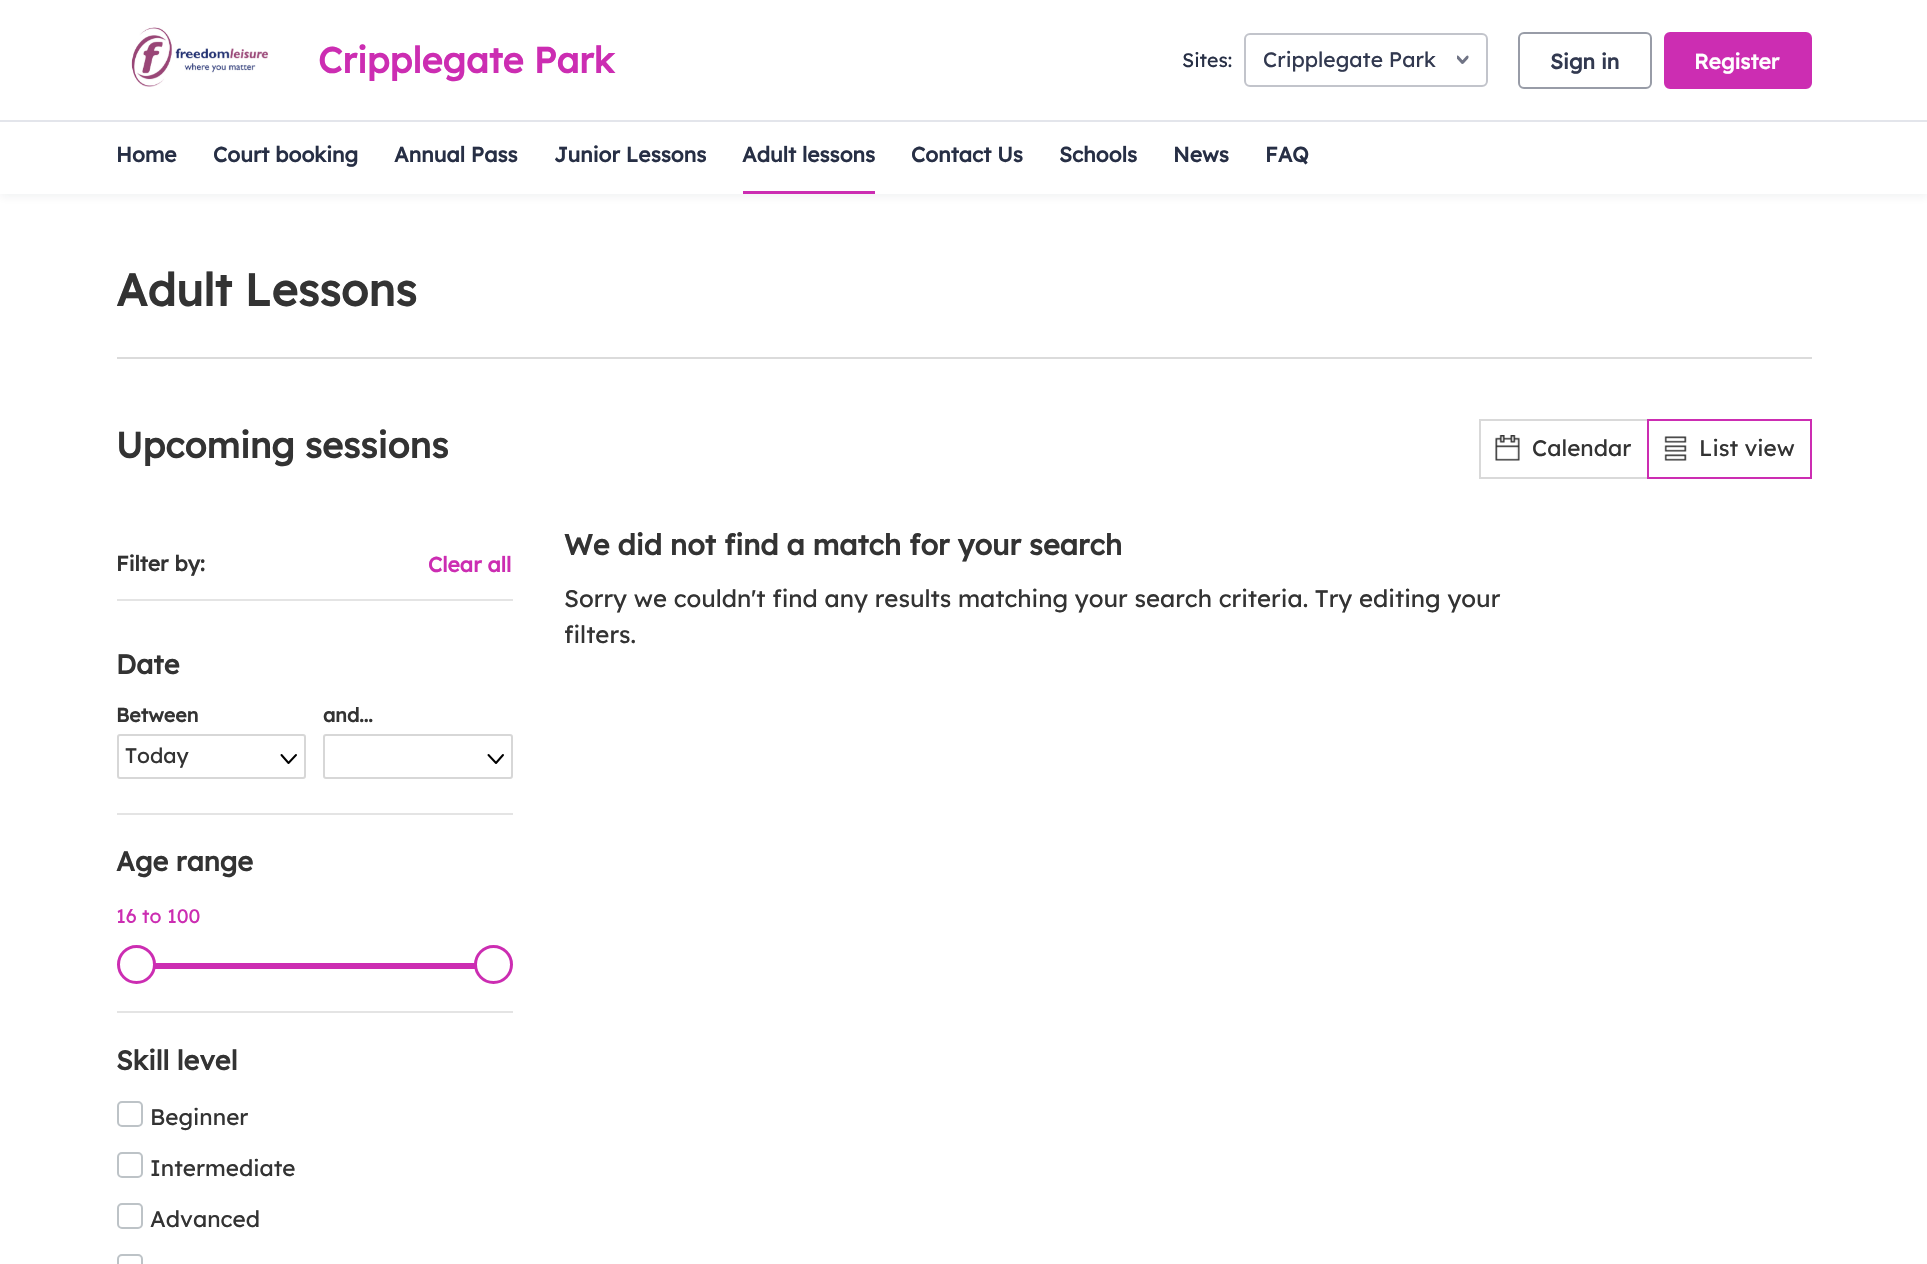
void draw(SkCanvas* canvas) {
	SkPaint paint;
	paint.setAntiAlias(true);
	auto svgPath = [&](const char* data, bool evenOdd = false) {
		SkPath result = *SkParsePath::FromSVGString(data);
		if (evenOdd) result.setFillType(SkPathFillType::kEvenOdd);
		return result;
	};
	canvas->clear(0xffffffff);
	paint.setColor(0x0f141d37);
	paint.setMaskFilter(SkMaskFilter::MakeBlur(kNormal_SkBlurStyle, 4.5));
	canvas->drawRect(SkRect::MakeXYWH(0, 3, 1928, 194), paint);
	paint.setMaskFilter(nullptr);
	paint.setColor(0xffffffff);
	canvas->drawRect(SkRect::MakeXYWH(0, 0, 1927, 194), paint);
	canvas->drawImageRect(SkImages::DeferredFromEncodedData(SkData::MakeFromFileName("img1.png")), SkRect::MakeXYWH(131, 27, 138, 60), SkSamplingOptions());
	SkFont f1(fontMgr->matchFamilyStyle("Lexend", SkFontStyle::Bold()), 36);
	f1.setSubpixel(true);
	paint.setColor(0xffcc2db2);
	canvas->drawString("Cripplegate Park", 318, 73, f1, paint);
	SkFont f2(fontMgr->matchFamilyStyle("Lexend", SkFontStyle::Normal()), 19.5);
	f2.setSubpixel(true);
	paint.setColor(0xff272f45);
	canvas->drawString("Sites:", 1182, 67, f2, paint);
	paint.setStroke(true);
	paint.setStrokeWidth(2);
	paint.setColor(0xffc2c4cb);
	canvas->drawRoundRect(SkRect::MakeXYWH(1245, 34, 242, 52), 5, 5, paint);
	SkFont f3(fontMgr->matchFamilyStyle("Lexend", SkFontStyle::Normal()), 21);
	f3.setSubpixel(true);
	paint.setStroke(false);
	paint.setColor(0xff323950);
	canvas->drawString("Cripplegate Park", 1263, 67, f3, paint);
	canvas->save();
	canvas->clipRect(SkRect::MakeXYWH(1457, 54, 12, 12));
	canvas->clipPath(svgPath("M1456.5 54H1468.5V66H1456.5Z"), true);
	paint.setStroke(true);
	paint.setStrokeWidth(3);
	paint.setStrokeCap(SkPaint::kRound_Cap);
	paint.setStrokeJoin(SkPaint::kRound_Join);
	paint.setColor(0xff707485);
	canvas->drawPath(svgPath("M1457.5 57L1462.5 62.5L1467.5 57"), paint);
	canvas->restore();
	paint.setStrokeWidth(2);
	paint.setStrokeCap(SkPaint::kButt_Cap);
	paint.setStrokeJoin(SkPaint::kMiter_Join);
	paint.setColor(0xff989ca7);
	canvas->drawRoundRect(SkRect::MakeXYWH(1519, 33, 132, 55), 5, 5, paint);
	SkFont f4(fontMgr->matchFamilyStyle("Lexend", SkFontStyle::Bold()), 21);
	f4.setSubpixel(true);
	paint.setStroke(false);
	paint.setColor(0xff323950);
	canvas->drawString("Sign in", 1550, 69, f4, paint);
	paint.setColor(0xffcc2db2);
	canvas->drawRoundRect(SkRect::MakeXYWH(1665, 33, 146, 55), 5, 5, paint);
	paint.setStroke(true);
	canvas->drawRoundRect(SkRect::MakeXYWH(1665, 33, 146, 55), 5, 5, paint);
	paint.setStroke(false);
	paint.setColor(0xffffffff);
	canvas->drawString("Register", 1694, 69, f4, paint);
	paint.setColor(0xffe3e5eb);
	canvas->drawRect(SkRect::MakeXYWH(0, 120, 1927, 2), paint);
	paint.setColor(0xff272f45);
	canvas->drawString("Home", 116, 162, f4, paint);
	canvas->drawString("Court booking", 213, 162, f4, paint);
	canvas->drawString("Annual Pass", 394, 162, f4, paint);
	canvas->drawString("Junior Lessons", 554, 162, f4, paint);
	paint.setColor(0xffcc2db2);
	canvas->drawRect(SkRect::MakeXYWH(743, 191, 132, 3), paint);
	paint.setColor(0xff272f45);
	canvas->drawString("Adult lessons", 742, 162, f4, paint);
	canvas->drawString("Contact Us", 911, 162, f4, paint);
	canvas->drawString("Schools", 1059, 162, f4, paint);
	canvas->drawString("News", 1173, 162, f4, paint);
	canvas->drawString("FAQ", 1265, 162, f4, paint);
	SkFont f5(fontMgr->matchFamilyStyle("Lexend", SkFontStyle::Bold()), 45);
	f5.setSubpixel(true);
	paint.setColor(0xff333333);
	canvas->drawString("Adult Lessons", 116, 306, f5, paint);
	paint.setColor(0xffdbdbdb);
	canvas->drawRect(SkRect::MakeXYWH(117, 357, 1695, 2), paint);
	paint.setColor(0xff333333);
	canvas->drawString("Upcoming sessions", 116, 458, f1, paint);
	paint.setStroke(true);
	paint.setColor(0xffd9d9d9);
	canvas->drawRect(SkRect::MakeXYWH(1480, 420, 168, 58), paint);
	canvas->drawImageRect(SkImages::DeferredFromEncodedData(SkData::MakeFromFileName("img2.png")), SkRect::MakeXYWH(1495, 435, 25, 26), SkSamplingOptions());
	SkFont f6(fontMgr->matchFamilyStyle("Lexend", SkFontStyle::Normal()), 22.5);
	f6.setSubpixel(true);
	paint.setStroke(false);
	paint.setColor(0xff333333);
	canvas->drawString("Calendar", 1532, 456, f6, paint);
	paint.setStroke(true);
	paint.setColor(0xffcc2db2);
	canvas->drawRect(SkRect::MakeXYWH(1648, 420, 163, 58), paint);
	canvas->drawImageRect(SkImages::DeferredFromEncodedData(SkData::MakeFromFileName("img3.png")), SkRect::MakeXYWH(1664, 436, 23, 25), SkSamplingOptions());
	paint.setStroke(false);
	paint.setColor(0xff333333);
	canvas->drawString("List view", 1699, 456, f6, paint);
	paint.setColor(0xffe4e4e4);
	canvas->drawRect(SkRect::MakeXYWH(117, 599, 396, 2), paint);
	paint.setColor(0xff333333);
	canvas->drawString("Filter by:", 116, 571, f4, paint);
	paint.setColor(0xffcc2db2);
	canvas->drawString("Clear all", 428, 572, f4, paint);
	paint.setColor(0xffe4e4e4);
	canvas->drawRect(SkRect::MakeXYWH(117, 813, 396, 2), paint);
	SkFont f7(fontMgr->matchFamilyStyle("Lexend", SkFontStyle::Bold()), 27);
	f7.setSubpixel(true);
	paint.setColor(0xff333333);
	canvas->drawString("Date", 116, 674, f7, paint);
	SkFont f8(fontMgr->matchFamilyStyle("Lexend", SkFontStyle::Bold()), 19.5);
	f8.setSubpixel(true);
	canvas->drawString("Between", 116, 722, f8, paint);
	paint.setStroke(true);
	paint.setStrokeCap(SkPaint::kRound_Cap);
	paint.setStrokeJoin(SkPaint::kRound_Join);
	paint.setColor(0xff000000);
	canvas->drawPath(svgPath("M296 755L288.5 763L281.5 755"), paint);
	paint.setStrokeCap(SkPaint::kButt_Cap);
	paint.setStrokeJoin(SkPaint::kMiter_Join);
	paint.setColor(0xffd7d7d7);
	canvas->drawRoundRect(SkRect::MakeXYWH(118, 735, 187, 43), 2, 2, paint);
	paint.setStroke(false);
	paint.setColor(0xff333333);
	canvas->drawString("Today", 125, 763, f3, paint);
	canvas->drawString("and...", 323, 722, f8, paint);
	paint.setStroke(true);
	paint.setStrokeCap(SkPaint::kRound_Cap);
	paint.setStrokeJoin(SkPaint::kRound_Join);
	paint.setColor(0xff000000);
	canvas->drawPath(svgPath("M503 755L496 763L488.5 755"), paint);
	paint.setStrokeCap(SkPaint::kButt_Cap);
	paint.setStrokeJoin(SkPaint::kMiter_Join);
	paint.setColor(0xffd7d7d7);
	canvas->drawRoundRect(SkRect::MakeXYWH(324, 735, 188, 43), 2, 2, paint);
	paint.setStroke(false);
	paint.setColor(0xffe4e4e4);
	canvas->drawRect(SkRect::MakeXYWH(117, 1011, 396, 2), paint);
	paint.setColor(0xff333333);
	canvas->drawString("Age range", 116, 871, f7, paint);
	paint.setColor(0xffcc2db2);
	canvas->drawString("16 to 100", 116, 923, f2, paint);
	canvas->drawRect(SkRect::MakeXYWH(155, 963, 320, 6), paint);
	paint.setColor(0xffffffff);
	canvas->drawCircle(136.5, 964.5, 18, paint);
	paint.setStroke(true);
	paint.setStrokeWidth(3);
	paint.setColor(0xffcc2db2);
	canvas->drawCircle(136.5, 964.5, 18, paint);
	paint.setStroke(false);
	paint.setColor(0xffffffff);
	canvas->drawCircle(493.5, 964.5, 18, paint);
	paint.setStroke(true);
	paint.setColor(0xffcc2db2);
	canvas->drawCircle(493.5, 964.5, 18, paint);
	paint.setStroke(false);
	paint.setColor(0xff333333);
	canvas->drawString("Skill level", 116, 1070, f7, paint);
	paint.setStroke(true);
	paint.setStrokeWidth(2);
	paint.setColor(0xffbdc3c7);
	canvas->drawRoundRect(SkRect::MakeXYWH(118, 1102, 24, 24), 4, 4, paint);
	paint.setStroke(false);
	paint.setColor(0xff333333);
	canvas->drawString("Beginner", 150, 1125, f6, paint);
	paint.setStroke(true);
	paint.setColor(0xffbdc3c7);
	canvas->drawRoundRect(SkRect::MakeXYWH(118, 1153, 24, 24), 4, 4, paint);
	paint.setStroke(false);
	paint.setColor(0xff333333);
	canvas->drawString("Intermediate", 150, 1176, f6, paint);
	paint.setStroke(true);
	paint.setColor(0xffbdc3c7);
	canvas->drawRoundRect(SkRect::MakeXYWH(118, 1204, 24, 24), 4, 4, paint);
	paint.setStroke(false);
	paint.setColor(0xff333333);
	canvas->drawString("Advanced", 150, 1227, f6, paint);
	paint.setStroke(true);
	paint.setColor(0xffbdc3c7);
	canvas->drawRoundRect(SkRect::MakeXYWH(118, 1255, 24, 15), 4, 4, paint);
	SkFont f9(fontMgr->matchFamilyStyle("Lexend", SkFontStyle::Bold()), 28.75);
	f9.setSubpixel(true);
	paint.setStroke(false);
	paint.setColor(0xff333333);
	canvas->drawString("We did not find a match for your search", 564, 555, f9, paint);
	SkFont f10(fontMgr->matchFamilyStyle("Lexend", SkFontStyle::Normal()), 24);
	f10.setSubpixel(true);
	canvas->drawString("Sorry we couldn't find any results matching your search criteria. Try editing your", 564, 607, f10, paint);
	canvas->drawString("filters.", 564, 643, f10, paint);
}
